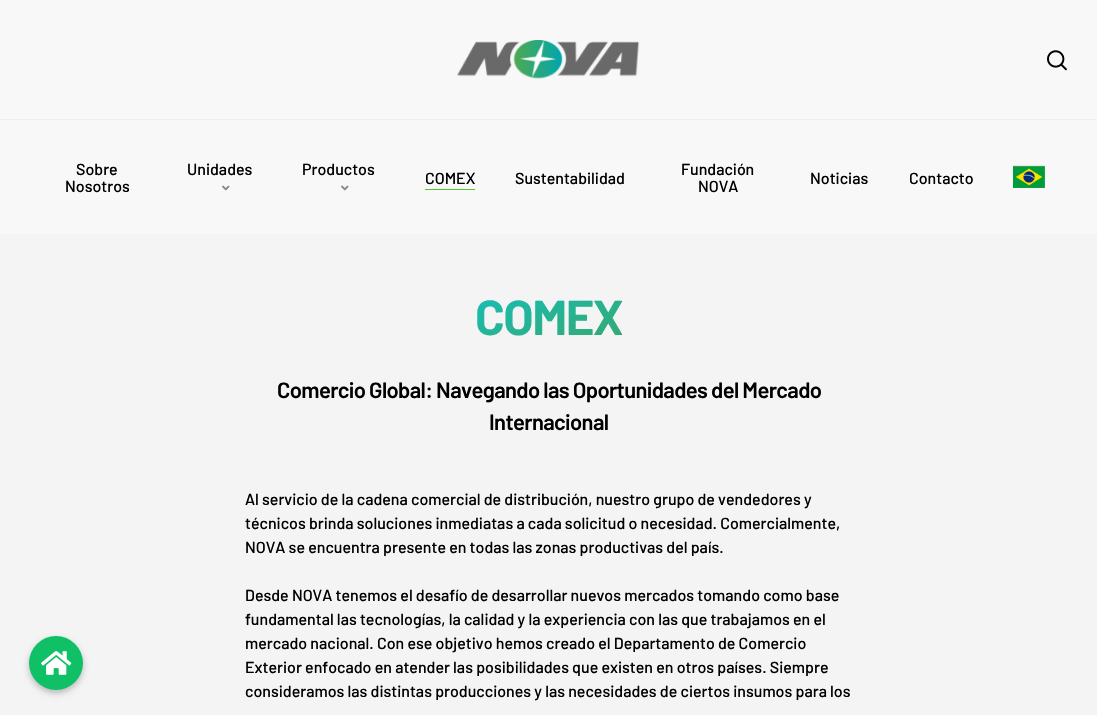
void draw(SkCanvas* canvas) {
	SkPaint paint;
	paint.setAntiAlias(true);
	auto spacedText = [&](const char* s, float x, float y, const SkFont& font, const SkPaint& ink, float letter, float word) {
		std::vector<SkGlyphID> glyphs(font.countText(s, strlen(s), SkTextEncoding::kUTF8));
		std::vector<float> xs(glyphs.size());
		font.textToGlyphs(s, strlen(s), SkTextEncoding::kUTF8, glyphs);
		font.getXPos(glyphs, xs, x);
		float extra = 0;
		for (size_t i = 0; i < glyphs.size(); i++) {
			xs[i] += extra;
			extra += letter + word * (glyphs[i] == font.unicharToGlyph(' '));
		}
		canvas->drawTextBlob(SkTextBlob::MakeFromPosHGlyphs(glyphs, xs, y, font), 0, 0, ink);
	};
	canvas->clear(0xfff8f8f8);
	paint.setColor(0xfff4f4f4);
	canvas->drawRect(SkRect::MakeXYWH(0, 234, 1097, 481), paint);
	paint.setColor(0x40000000);
	paint.setMaskFilter(SkMaskFilter::MakeBlur(kNormal_SkBlurStyle, 3));
	canvas->drawRoundRect(SkRect::MakeXYWH(29, 639, 54, 54), 27, 27, paint);
	paint.setMaskFilter(nullptr);
	paint.setColor(0xff0fc067);
	canvas->drawCircle(56, 663, 27, paint);
	canvas->drawImageRect(SkImages::DeferredFromEncodedData(SkData::MakeFromFileName("img1.png")), SkRect::MakeXYWH(41, 651, 31, 24), SkSamplingOptions());
	canvas->drawImageRect(SkImages::DeferredFromEncodedData(SkData::MakeFromFileName("img2.png")), SkRect::MakeXYWH(457, 40, 183, 39), SkSamplingOptions());
	canvas->drawImageRect(SkImages::DeferredFromEncodedData(SkData::MakeFromFileName("img3.png")), SkRect::MakeXYWH(1047, 50, 20, 21), SkSamplingOptions());
	paint.setColor(0xffefefef);
	canvas->drawRect(SkRect::MakeXYWH(0, 119, 1097, 1), paint);
	SkFont f1(fontMgr->matchFamilyStyle("Barlow", SkFontStyle(500, SkFontStyle::kNormal_Width, SkFontStyle::kUpright_Slant)), 16);
	f1.setSubpixel(true);
	paint.setColor(0xff000000);
	canvas->drawString("Sobre", 76, 175, f1, paint);
	canvas->drawString("Nosotros", 65, 192, f1, paint);
	canvas->drawString("Unidades", 187, 175, f1, paint);
	canvas->drawImageRect(SkImages::DeferredFromEncodedData(SkData::MakeFromFileName("img4.png")), SkRect::MakeXYWH(222, 185, 8, 6), SkSamplingOptions());
	canvas->drawString("Productos", 302, 175, f1, paint);
	canvas->drawImageRect(SkImages::DeferredFromEncodedData(SkData::MakeFromFileName("img4.png")), SkRect::MakeXYWH(341, 185, 8, 6), SkSamplingOptions());
	canvas->drawString("COMEX", 425, 184, f1, paint);
	paint.setColor(0xff4bc92b);
	canvas->drawRect(SkRect::MakeXYWH(425, 189, 50, 1), paint);
	paint.setColor(0xff000000);
	canvas->drawString("Sustentabilidad", 515, 184, f1, paint);
	canvas->drawString("Fundación", 681, 175, f1, paint);
	canvas->drawString("NOVA", 698, 192, f1, paint);
	canvas->drawString("Noticias", 810, 184, f1, paint);
	canvas->drawString("Contacto", 909, 184, f1, paint);
	canvas->drawImageRect(SkImages::DeferredFromEncodedData(SkData::MakeFromFileName("img5.png")), SkRect::MakeXYWH(1013, 165, 32, 23), SkSamplingOptions());
	SkFont f2(fontMgr->matchFamilyStyle("Barlow", SkFontStyle::Bold()), 49);
	f2.setSubpixel(true);
	{
		const SkColor colors[] = {0xff15bfb9, 0xff36a870};
		const float stops[] = {0, 1};
		const SkPoint ends[] = {{531, 268}, {566, 363}};
		paint.setShader(SkGradientShader::MakeLinear(ends, colors, stops, 2, SkTileMode::kClamp));
		paint.setAlpha(255);
	}
	spacedText("COMEX", 475, 335, f2, paint, -1.5, 0);
	SkFont f3(fontMgr->matchFamilyStyle("Barlow", SkFontStyle(600, SkFontStyle::kNormal_Width, SkFontStyle::kUpright_Slant)), 22);
	f3.setSubpixel(true);
	paint.setShader(nullptr);
	paint.setColor(0xff000000);
	spacedText("Comercio Global: Navegando las Oportunidades del Mercado", 277, 398, f3, paint, -0.65, 0);
	spacedText("Internacional", 489, 430, f3, paint, -0.65, 0);
	canvas->drawString("Al servicio de la cadena comercial de distribución, nuestro grupo de vendedores y", 245, 505, f1, paint);
	canvas->drawString("técnicos brinda soluciones inmediatas a cada solicitud o necesidad. Comercialmente,", 245, 529, f1, paint);
	canvas->drawString("NOVA se encuentra presente en todas las zonas productivas del país.", 245, 553, f1, paint);
	canvas->drawString("Desde NOVA tenemos el desafío de desarrollar nuevos mercados tomando como base", 245, 601, f1, paint);
	canvas->drawString("fundamental las tecnologías, la calidad y la experiencia con las que trabajamos en el", 245, 625, f1, paint);
	canvas->drawString("mercado nacional. Con ese objetivo hemos creado el Departamento de Comercio", 245, 649, f1, paint);
	canvas->drawString("Exterior enfocado en atender las posibilidades que existen en otros países. Siempre", 245, 673, f1, paint);
	canvas->drawString("consideramos las distintas producciones y las necesidades de ciertos insumos para los", 245, 697, f1, paint);
}
